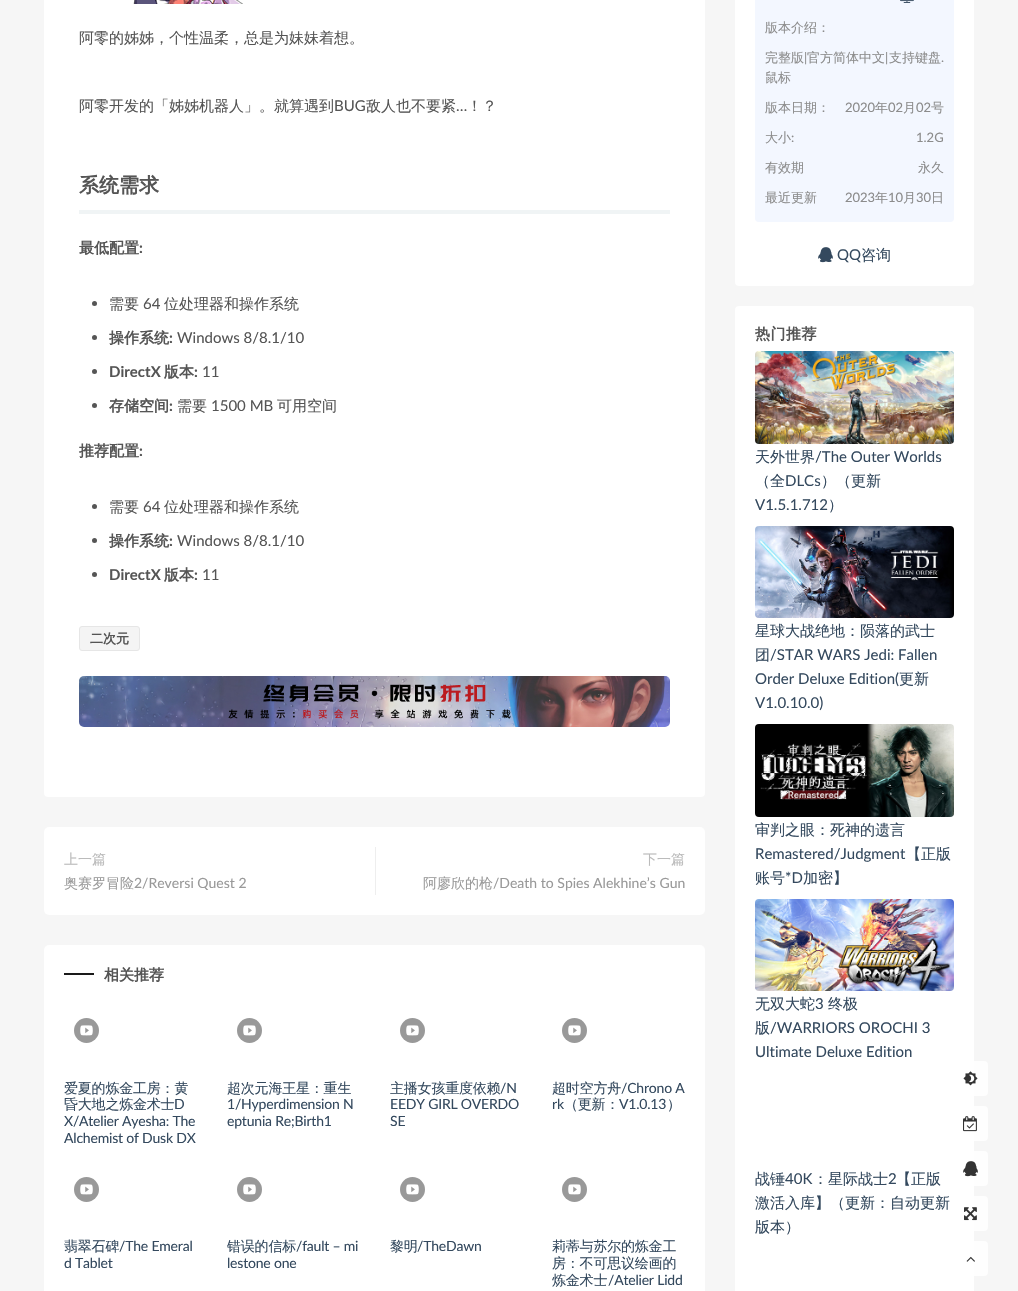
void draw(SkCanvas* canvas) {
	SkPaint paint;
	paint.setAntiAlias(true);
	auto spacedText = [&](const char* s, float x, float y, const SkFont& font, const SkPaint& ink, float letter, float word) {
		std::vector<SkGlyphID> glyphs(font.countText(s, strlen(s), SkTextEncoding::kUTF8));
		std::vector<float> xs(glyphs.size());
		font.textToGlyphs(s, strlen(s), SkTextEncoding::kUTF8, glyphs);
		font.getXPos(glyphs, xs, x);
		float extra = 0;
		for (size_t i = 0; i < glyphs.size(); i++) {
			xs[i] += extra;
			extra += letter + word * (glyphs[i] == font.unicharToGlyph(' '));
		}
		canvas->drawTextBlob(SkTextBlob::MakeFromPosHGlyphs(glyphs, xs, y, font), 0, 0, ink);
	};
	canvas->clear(0xfff6f6f6);
	paint.setColor(0xffffffff);
	canvas->drawRoundRect(SkRect::MakeXYWH(44, -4, 661, 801), 4, 4, paint);
	canvas->drawImageRect(SkImages::DeferredFromEncodedData(SkData::MakeFromFileName("img1.png")), SkRect::MakeXYWH(133, 0, 110, 4), SkSamplingOptions());
	SkFont f1(fontMgr->matchFamilyStyle("WenQuanYi Zen Hei", SkFontStyle(500, SkFontStyle::kNormal_Width, SkFontStyle::kUpright_Slant)), 15);
	f1.setSubpixel(true);
	paint.setColor(0xff555555);
	canvas->drawString("阿零的姊姊，个性温柔，总是为妹妹着想。", 79, 43, f1, paint);
	canvas->drawString("阿零开发的「姊姊机器人」。就算遇到", 79, 111, f1, paint);
	SkFont f2(fontMgr->matchFamilyStyle("Lato", SkFontStyle::Normal()), 15);
	f2.setSubpixel(true);
	canvas->drawString("BUG", 334, 111, f2, paint);
	canvas->drawString("敌人也不要紧", 366, 111, f1, paint);
	canvas->drawString("…", 456, 111, f2, paint);
	canvas->drawString("！？", 467, 111, f1, paint);
	paint.setColor(0xfff0f4f5);
	canvas->drawRect(SkRect::MakeXYWH(79, 210, 591, 4), paint);
	SkFont f3(fontMgr->matchFamilyStyle("WenQuanYi Zen Hei", SkFontStyle::Bold()), 20);
	f3.setSubpixel(true);
	paint.setColor(0xff555555);
	canvas->drawString("系统需求", 79, 192, f3, paint);
	SkFont f4(fontMgr->matchFamilyStyle("WenQuanYi Zen Hei", SkFontStyle::Bold()), 15);
	f4.setSubpixel(true);
	canvas->drawString("最低配置", 79, 253, f4, paint);
	SkFont f5(fontMgr->matchFamilyStyle("Lato", SkFontStyle::Bold()), 15);
	f5.setSubpixel(true);
	canvas->drawString(":", 139, 253, f5, paint);
	canvas->drawCircle(94.5, 303.5, 2.5, paint);
	canvas->drawString("需要", 109, 309, f1, paint);
	canvas->drawString("64", 143, 309, f2, paint);
	canvas->drawString("位处理器和操作系统", 164, 309, f1, paint);
	canvas->drawCircle(94.5, 337.5, 2.5, paint);
	canvas->drawString("操作系统", 109, 343, f4, paint);
	canvas->drawString(":", 169, 343, f5, paint);
	canvas->drawString("Windows 8/8.1/10", 177, 343, f2, paint);
	canvas->drawCircle(94.5, 371.5, 2.5, paint);
	canvas->drawString("DirectX", 109, 377, f5, paint);
	canvas->drawString("版本", 164, 377, f4, paint);
	canvas->drawString(":", 194, 377, f5, paint);
	canvas->drawString("11", 202, 377, f2, paint);
	canvas->drawCircle(94.5, 405.5, 2.5, paint);
	canvas->drawString("存储空间", 109, 411, f4, paint);
	canvas->drawString(":", 169, 411, f5, paint);
	canvas->drawString("需要", 177, 411, f1, paint);
	canvas->drawString("1500 MB", 211, 411, f2, paint);
	canvas->drawString("可用空间", 277, 411, f1, paint);
	canvas->drawString("推荐配置", 79, 456, f4, paint);
	canvas->drawString(":", 139, 456, f5, paint);
	canvas->drawCircle(94.5, 506.5, 2.5, paint);
	canvas->drawString("需要", 109, 512, f1, paint);
	canvas->drawString("64", 143, 512, f2, paint);
	canvas->drawString("位处理器和操作系统", 164, 512, f1, paint);
	canvas->drawCircle(94.5, 540.5, 2.5, paint);
	canvas->drawString("操作系统", 109, 546, f4, paint);
	canvas->drawString(":", 169, 546, f5, paint);
	canvas->drawString("Windows 8/8.1/10", 177, 546, f2, paint);
	canvas->drawCircle(94.5, 574.5, 2.5, paint);
	canvas->drawString("DirectX", 109, 580, f5, paint);
	canvas->drawString("版本", 164, 580, f4, paint);
	canvas->drawString(":", 194, 580, f5, paint);
	canvas->drawString("11", 202, 580, f2, paint);
	paint.setColor(0xfff4f4f4);
	canvas->drawRoundRect(SkRect::MakeXYWH(79.5, 626.5, 60, 24), 2.5, 2.5, paint);
	paint.setStroke(true);
	paint.setStrokeWidth(1);
	paint.setColor(0xffe6e6e6);
	canvas->drawRoundRect(SkRect::MakeXYWH(79.5, 626.5, 60, 24), 2.5, 2.5, paint);
	SkFont f6(fontMgr->matchFamilyStyle("WenQuanYi Zen Hei", SkFontStyle::Bold()), 13);
	f6.setSubpixel(true);
	paint.setStroke(false);
	paint.setColor(0xff555555);
	canvas->drawString("二次元", 90, 643, f6, paint);
	canvas->drawImageRect(SkImages::DeferredFromEncodedData(SkData::MakeFromFileName("img2.png")), SkRect::MakeXYWH(79, 676, 591, 51), SkSamplingOptions());
	paint.setColor(0xffffffff);
	canvas->drawRoundRect(SkRect::MakeXYWH(44, 827, 661, 88), 5, 5, paint);
	SkFont f7(fontMgr->matchFamilyStyle("WenQuanYi Zen Hei", SkFontStyle(500, SkFontStyle::kNormal_Width, SkFontStyle::kUpright_Slant)), 14);
	f7.setSubpixel(true);
	paint.setColor(0xffbbbbbb);
	canvas->drawString("上一篇", 64, 864, f7, paint);
	paint.setColor(0xff999999);
	canvas->drawString("奥赛罗冒险", 64, 888, f7, paint);
	SkFont f8(fontMgr->matchFamilyStyle("Lato", SkFontStyle::Normal()), 14);
	f8.setSubpixel(true);
	canvas->drawString("2/Reversi Quest 2", 134, 888, f8, paint);
	paint.setColor(0xffeeeeee);
	canvas->drawRect(SkRect::MakeXYWH(375, 847, 1, 48), paint);
	paint.setColor(0xffbbbbbb);
	canvas->drawString("下一篇", 643, 864, f7, paint);
	paint.setColor(0xff999999);
	canvas->drawString("阿廖欣的枪", 423, 888, f7, paint);
	canvas->drawString("/Death to Spies Alekhine’s Gun", 493, 888, f8, paint);
	paint.setColor(0xffffffff);
	canvas->drawRoundRect(SkRect::MakeXYWH(44, 945, 661, 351), 5, 5, paint);
	paint.setColor(0xff1a1a1a);
	canvas->drawRect(SkRect::MakeXYWH(64, 973, 30, 2), paint);
	paint.setColor(0xff555555);
	canvas->drawString("相关推荐", 104, 980, f4, paint);
	paint.setColor(0xff999999);
	canvas->drawCircle(86.5, 1030.5, 12.5, paint);
	canvas->drawImageRect(SkImages::DeferredFromEncodedData(SkData::MakeFromFileName("img3.png")), SkRect::MakeXYWH(80, 1025, 13, 11), SkSamplingOptions());
	paint.setColor(0xff34495e);
	spacedText("爱夏的炼金工房：黄", 64, 1093, f7, paint, -0.2, 0);
	spacedText("昏大地之炼金术士", 64, 1109, f7, paint, -0.2, 0);
	spacedText("D", 174, 1109, f8, paint, -0.2, 0);
	spacedText("X/Atelier Ayesha: The", 64, 1126, f8, paint, -0.2, 0);
	spacedText("Alchemist of Dusk DX", 64, 1143, f8, paint, -0.2, 0);
	paint.setColor(0xff999999);
	canvas->drawCircle(249.5, 1030.5, 12.5, paint);
	canvas->drawImageRect(SkImages::DeferredFromEncodedData(SkData::MakeFromFileName("img3.png")), SkRect::MakeXYWH(243, 1025, 13, 11), SkSamplingOptions());
	paint.setColor(0xff34495e);
	spacedText("超次元海王星：重生", 227, 1093, f7, paint, -0.2, 0);
	spacedText("1/Hyperdimension N", 227, 1109, f8, paint, -0.2, 0);
	spacedText("eptunia Re;Birth1", 227, 1126, f8, paint, -0.2, 0);
	paint.setColor(0xff999999);
	canvas->drawCircle(412.5, 1030.5, 12.5, paint);
	canvas->drawImageRect(SkImages::DeferredFromEncodedData(SkData::MakeFromFileName("img3.png")), SkRect::MakeXYWH(406, 1025, 13, 11), SkSamplingOptions());
	paint.setColor(0xff34495e);
	spacedText("主播女孩重度依赖", 390, 1093, f7, paint, -0.2, 0);
	spacedText("/N", 500, 1093, f8, paint, -0.2, 0);
	spacedText("EEDY GIRL OVERDO", 390, 1109, f8, paint, -0.2, 0);
	spacedText("SE", 390, 1126, f8, paint, -0.2, 0);
	paint.setColor(0xff999999);
	canvas->drawCircle(574.5, 1030.5, 12.5, paint);
	canvas->drawImageRect(SkImages::DeferredFromEncodedData(SkData::MakeFromFileName("img3.png")), SkRect::MakeXYWH(568, 1025, 13, 11), SkSamplingOptions());
	paint.setColor(0xff34495e);
	spacedText("超时空方舟", 552, 1093, f7, paint, -0.2, 0);
	spacedText("/Chrono A", 621, 1093, f8, paint, -0.2, 0);
	spacedText("rk", 552, 1109, f8, paint, -0.2, 0);
	spacedText("（更新：", 564, 1109, f7, paint, -0.2, 0);
	spacedText("V1.0.13", 619, 1109, f8, paint, -0.2, 0);
	spacedText("）", 667, 1109, f7, paint, -0.2, 0);
	paint.setColor(0xff999999);
	canvas->drawCircle(86.5, 1189.5, 12.5, paint);
	canvas->drawImageRect(SkImages::DeferredFromEncodedData(SkData::MakeFromFileName("img3.png")), SkRect::MakeXYWH(80, 1184, 13, 11), SkSamplingOptions());
	paint.setColor(0xff34495e);
	spacedText("翡翠石碑", 64, 1251, f7, paint, -0.2, 0);
	spacedText("/The Emeral", 119, 1251, f8, paint, -0.2, 0);
	spacedText("d Tablet", 64, 1268, f8, paint, -0.2, 0);
	paint.setColor(0xff999999);
	canvas->drawCircle(249.5, 1189.5, 12.5, paint);
	canvas->drawImageRect(SkImages::DeferredFromEncodedData(SkData::MakeFromFileName("img3.png")), SkRect::MakeXYWH(243, 1184, 13, 11), SkSamplingOptions());
	paint.setColor(0xff34495e);
	spacedText("错误的信标", 227, 1251, f7, paint, -0.2, 0);
	spacedText("/fault – mi", 296, 1251, f8, paint, -0.2, 0);
	spacedText("lestone one", 227, 1268, f8, paint, -0.2, 0);
	paint.setColor(0xff999999);
	canvas->drawCircle(412.5, 1189.5, 12.5, paint);
	canvas->drawImageRect(SkImages::DeferredFromEncodedData(SkData::MakeFromFileName("img3.png")), SkRect::MakeXYWH(406, 1184, 13, 11), SkSamplingOptions());
	paint.setColor(0xff34495e);
	spacedText("黎明", 390, 1251, f7, paint, -0.2, 0);
	spacedText("/TheDawn", 417, 1251, f8, paint, -0.2, 0);
	paint.setColor(0xff999999);
	canvas->drawCircle(574.5, 1189.5, 12.5, paint);
	canvas->drawImageRect(SkImages::DeferredFromEncodedData(SkData::MakeFromFileName("img3.png")), SkRect::MakeXYWH(568, 1184, 13, 11), SkSamplingOptions());
	paint.setColor(0xff34495e);
	spacedText("莉蒂与苏尔的炼金工", 552, 1251, f7, paint, -0.2, 0);
	spacedText("房：不可思议绘画的", 552, 1268, f7, paint, -0.2, 0);
	spacedText("炼金术士", 552, 1285, f7, paint, -0.2, 0);
	spacedText("/Atelier Lidd", 608, 1285, f8, paint, -0.2, 0);
	paint.setColor(0xffffffff);
	canvas->drawRoundRect(SkRect::MakeXYWH(735, -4, 239, 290), 4, 4, paint);
	paint.setColor(0xfff3f7ff);
	canvas->drawRoundRect(SkRect::MakeXYWH(755, -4, 199, 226), 4, 4, paint);
	canvas->drawImageRect(SkImages::DeferredFromEncodedData(SkData::MakeFromFileName("img4.png")), SkRect::MakeXYWH(900, 0, 14, 3), SkSamplingOptions());
	SkFont f9(fontMgr->matchFamilyStyle("WenQuanYi Zen Hei", SkFontStyle(500, SkFontStyle::kNormal_Width, SkFontStyle::kUpright_Slant)), 13);
	f9.setSubpixel(true);
	paint.setColor(0xff8c8c8c);
	canvas->drawString("版本介绍：", 765, 32, f9, paint);
	canvas->drawString("完整版", 765, 62, f9, paint);
	SkFont f10(fontMgr->matchFamilyStyle("Lato", SkFontStyle::Normal()), 13);
	f10.setSubpixel(true);
	canvas->drawString("|", 804, 62, f10, paint);
	canvas->drawString("官方简体中文", 807, 62, f9, paint);
	canvas->drawString("|", 885, 62, f10, paint);
	canvas->drawString("支持键盘", 889, 62, f9, paint);
	canvas->drawString(".", 941, 62, f10, paint);
	canvas->drawString("鼠标", 765, 82, f9, paint);
	canvas->drawString("版本日期：", 765, 112, f9, paint);
	canvas->drawString("2020", 845, 112, f10, paint);
	canvas->drawString("年", 875, 112, f9, paint);
	canvas->drawString("02", 888, 112, f10, paint);
	canvas->drawString("月", 903, 112, f9, paint);
	canvas->drawString("02", 916, 112, f10, paint);
	canvas->drawString("号", 931, 112, f9, paint);
	canvas->drawString("大小", 765, 142, f9, paint);
	canvas->drawString(":", 791, 142, f10, paint);
	canvas->drawString("1.2G", 916, 142, f10, paint);
	canvas->drawString("有效期", 765, 172, f9, paint);
	canvas->drawString("永久", 918, 172, f9, paint);
	canvas->drawString("最近更新", 765, 202, f9, paint);
	canvas->drawString("2023", 845, 202, f10, paint);
	canvas->drawString("年", 875, 202, f9, paint);
	canvas->drawString("10", 888, 202, f10, paint);
	canvas->drawString("月", 903, 202, f9, paint);
	canvas->drawString("30", 916, 202, f10, paint);
	canvas->drawString("日", 931, 202, f9, paint);
	canvas->drawImageRect(SkImages::DeferredFromEncodedData(SkData::MakeFromFileName("img5.png")), SkRect::MakeXYWH(818, 247, 15, 16), SkSamplingOptions());
	paint.setColor(0xff34495e);
	canvas->drawString("QQ", 837, 260, f2, paint);
	canvas->drawString("咨询", 861, 260, f1, paint);
	paint.setColor(0xffffffff);
	canvas->drawRoundRect(SkRect::MakeXYWH(735, 306, 239, 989), 4, 4, paint);
	paint.setColor(0xff555555);
	spacedText("热门推荐", 755, 339, f4, paint, 0.5, 0);
	canvas->drawImageRect(SkImages::DeferredFromEncodedData(SkData::MakeFromFileName("img6.png")), SkRect::MakeXYWH(755, 351, 199, 93), SkSamplingOptions());
	paint.setColor(0xff34495e);
	canvas->drawString("天外世界", 755, 462, f1, paint);
	canvas->drawString("/The Outer Worlds", 815, 462, f2, paint);
	canvas->drawString("（全", 755, 486, f1, paint);
	canvas->drawString("DLCs", 785, 486, f2, paint);
	canvas->drawString("）（更新", 821, 486, f1, paint);
	canvas->drawString("V1.5.1.712", 755, 510, f2, paint);
	canvas->drawString("）", 828, 510, f1, paint);
	canvas->drawImageRect(SkImages::DeferredFromEncodedData(SkData::MakeFromFileName("img7.png")), SkRect::MakeXYWH(755, 526, 199, 92), SkSamplingOptions());
	canvas->drawString("星球大战绝地：陨落的武士", 755, 636, f1, paint);
	canvas->drawString("团", 755, 660, f1, paint);
	canvas->drawString("/STAR WARS Jedi: Fallen", 770, 660, f2, paint);
	canvas->drawString("Order Deluxe Edition(", 755, 684, f2, paint);
	canvas->drawString("更新", 899, 684, f1, paint);
	canvas->drawString("V1.0.10.0)", 755, 708, f2, paint);
	canvas->drawImageRect(SkImages::DeferredFromEncodedData(SkData::MakeFromFileName("img8.png")), SkRect::MakeXYWH(755, 724, 199, 93), SkSamplingOptions());
	canvas->drawString("审判之眼：死神的遗言", 755, 835, f1, paint);
	canvas->drawString("Remastered/Judgment", 755, 859, f2, paint);
	canvas->drawString("【正版", 906, 859, f1, paint);
	canvas->drawString("账号", 755, 883, f1, paint);
	canvas->drawString("*D", 785, 883, f2, paint);
	canvas->drawString("加密】", 803, 883, f1, paint);
	canvas->drawImageRect(SkImages::DeferredFromEncodedData(SkData::MakeFromFileName("img9.png")), SkRect::MakeXYWH(755, 899, 199, 92), SkSamplingOptions());
	canvas->drawString("无双大蛇", 755, 1009, f1, paint);
	canvas->drawString("3", 815, 1009, f2, paint);
	canvas->drawString("终极", 828, 1009, f1, paint);
	canvas->drawString("版", 755, 1033, f1, paint);
	canvas->drawString("/WARRIORS OROCHI 3", 770, 1033, f2, paint);
	canvas->drawString("Ultimate Deluxe Edition", 755, 1057, f2, paint);
	canvas->drawString("战锤", 755, 1184, f1, paint);
	canvas->drawString("40K", 785, 1184, f2, paint);
	canvas->drawString("：星际战士", 813, 1184, f1, paint);
	canvas->drawString("2", 888, 1184, f2, paint);
	canvas->drawString("【正版", 896, 1184, f1, paint);
	canvas->drawString("激活入库】（更新：自动更新", 755, 1208, f1, paint);
	canvas->drawString("版本）", 755, 1232, f1, paint);
	paint.setColor(0xccffffff);
	canvas->drawRoundRect(SkRect::MakeXYWH(953, 1061, 35, 35), 4, 4, paint);
	canvas->drawImageRect(SkImages::DeferredFromEncodedData(SkData::MakeFromFileName("img10.png")), SkRect::MakeXYWH(963, 1071, 15, 15), SkSamplingOptions());
	canvas->drawRoundRect(SkRect::MakeXYWH(953, 1106, 35, 35), 4, 4, paint);
	canvas->drawImageRect(SkImages::DeferredFromEncodedData(SkData::MakeFromFileName("img11.png")), SkRect::MakeXYWH(963, 1116, 14, 16), SkSamplingOptions());
	canvas->drawRoundRect(SkRect::MakeXYWH(953, 1151, 35, 35), 4, 4, paint);
	canvas->drawImageRect(SkImages::DeferredFromEncodedData(SkData::MakeFromFileName("img12.png")), SkRect::MakeXYWH(963, 1161, 15, 16), SkSamplingOptions());
	canvas->drawRoundRect(SkRect::MakeXYWH(953, 1196, 35, 35), 4, 4, paint);
	canvas->drawImageRect(SkImages::DeferredFromEncodedData(SkData::MakeFromFileName("img13.png")), SkRect::MakeXYWH(964, 1207, 13, 14), SkSamplingOptions());
	canvas->drawRoundRect(SkRect::MakeXYWH(953, 1241, 35, 35), 4, 4, paint);
	canvas->drawImageRect(SkImages::DeferredFromEncodedData(SkData::MakeFromFileName("img14.png")), SkRect::MakeXYWH(966, 1256, 9, 6), SkSamplingOptions());
}
